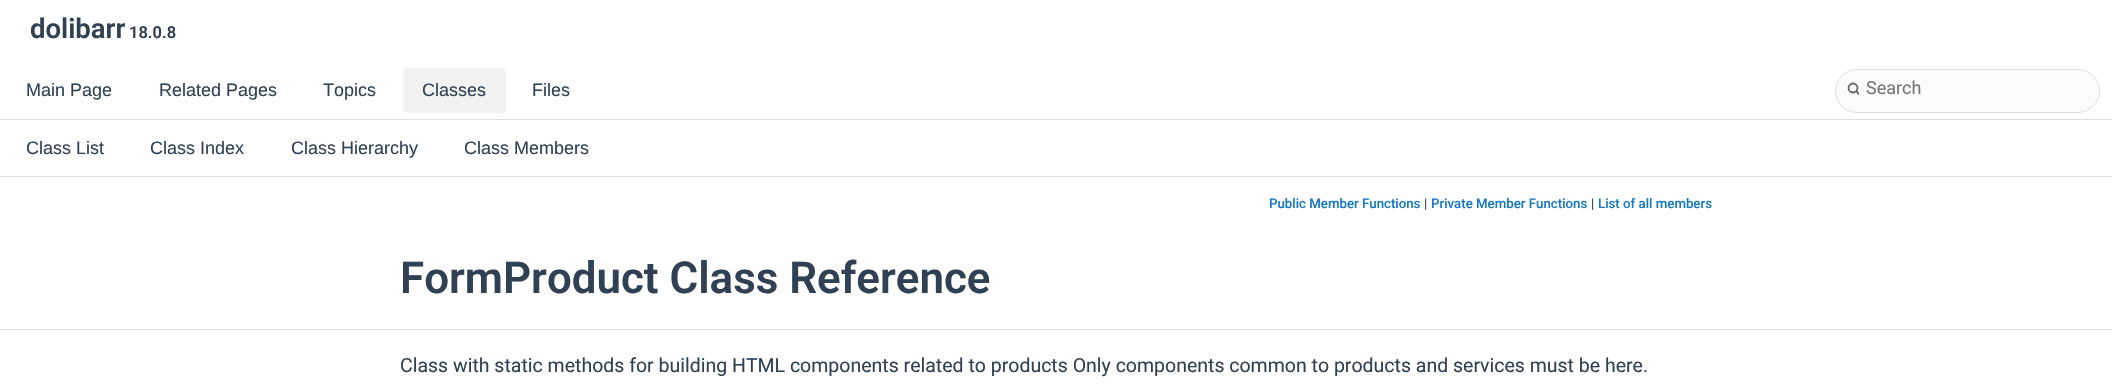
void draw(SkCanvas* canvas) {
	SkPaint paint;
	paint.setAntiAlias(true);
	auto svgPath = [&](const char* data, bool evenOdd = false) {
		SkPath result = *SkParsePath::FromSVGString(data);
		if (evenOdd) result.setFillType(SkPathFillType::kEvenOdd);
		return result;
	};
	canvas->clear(0xffffffff);
	paint.setColor(0xffdedede);
	canvas->drawRect(SkRect::MakeXYWH(0, 176, 2112, 1), paint);
	SkFont f1(fontMgr->matchFamilyStyle("Roboto", SkFontStyle(600, SkFontStyle::kNormal_Width, SkFontStyle::kUpright_Slant)), 27.5);
	f1.setSubpixel(true);
	paint.setColor(0xff2f4153);
	canvas->drawString("dolibarr", 30, 38, f1, paint);
	SkFont f2(fontMgr->matchFamilyStyle("Roboto", SkFontStyle(600, SkFontStyle::kNormal_Width, SkFontStyle::kUpright_Slant)), 16.5);
	f2.setSubpixel(true);
	canvas->drawString("18.0.8", 129, 38, f2, paint);
	paint.setColor(0xffdedede);
	canvas->drawRect(SkRect::MakeXYWH(0, 119, 2112, 1), paint);
	SkFont f3(fontMgr->matchFamilyStyle("Liberation Sans", SkFontStyle::Normal()), 18);
	f3.setSubpixel(true);
	paint.setColor(0xff2f4153);
	canvas->drawString("Main Page", 26, 96, f3, paint);
	canvas->drawString("Related Pages", 159, 96, f3, paint);
	canvas->drawString("Topics", 323, 96, f3, paint);
	paint.setColor(0xfff2f2f2);
	canvas->drawRoundRect(SkRect::MakeXYWH(403, 68, 103, 45), 5, 5, paint);
	paint.setColor(0xff2f4153);
	canvas->drawString("Classes", 422, 96, f3, paint);
	canvas->drawString("Files", 532, 96, f3, paint);
	paint.setColor(0xfffbfbfb);
	canvas->drawRoundRect(SkRect::MakeXYWH(1835.5, 69.5, 264, 43), 21.5, 21.5, paint);
	paint.setStroke(true);
	paint.setStrokeWidth(1);
	paint.setColor(0xffdedede);
	canvas->drawRoundRect(SkRect::MakeXYWH(1835.5, 69.5, 264, 43), 21.5, 21.5, paint);
	paint.setStrokeWidth(1.8);
	paint.setColor(0xff656565);
	canvas->drawCircle(1853, 88, 4.5, paint);
	canvas->save();
	canvas->clipRect(SkRect::MakeXYWH(1846, 78, 13, 23));
	paint.setStrokeCap(SkPaint::kRound_Cap);
	canvas->drawPath(svgPath("M1856.5 91.5L1860 95"), paint);
	canvas->restore();
	SkFont f4(fontMgr->matchFamilyStyle("Roboto", SkFontStyle::Normal()), 18);
	f4.setSubpixel(true);
	paint.setStroke(false);
	paint.setColor(0xff757575);
	canvas->drawString("Search", 1866, 94, f4, paint);
	paint.setColor(0xff2f4153);
	canvas->drawString("Class List", 26, 154, f3, paint);
	canvas->drawString("Class Index", 150, 154, f3, paint);
	canvas->drawString("Class Hierarchy", 291, 154, f3, paint);
	canvas->drawString("Class Members", 464, 154, f3, paint);
	paint.setColor(0xffdedede);
	canvas->drawRect(SkRect::MakeXYWH(0, 329, 2112, 1), paint);
	SkFont f5(fontMgr->matchFamilyStyle("Roboto", SkFontStyle(500, SkFontStyle::kNormal_Width, SkFontStyle::kUpright_Slant)), 13.25);
	f5.setSubpixel(true);
	paint.setColor(0xff1779c4);
	canvas->drawString("Public Member Functions", 1269, 208, f5, paint);
	SkFont f6(fontMgr->matchFamilyStyle("Roboto", SkFontStyle::Normal()), 13.25);
	f6.setSubpixel(true);
	paint.setColor(0xff2f4153);
	canvas->drawString("|", 1424, 208, f6, paint);
	paint.setColor(0xff1779c4);
	canvas->drawString("Private Member Functions", 1431, 208, f5, paint);
	paint.setColor(0xff2f4153);
	canvas->drawString("|", 1591, 208, f6, paint);
	paint.setColor(0xff1779c4);
	canvas->drawString("List of all members", 1598, 208, f5, paint);
	SkFont f7(fontMgr->matchFamilyStyle("Roboto", SkFontStyle(600, SkFontStyle::kNormal_Width, SkFontStyle::kUpright_Slant)), 43.9);
	f7.setSubpixel(true);
	paint.setColor(0xff2f4153);
	canvas->drawString("FormProduct Class Reference", 400, 293, f7, paint);
	SkFont f8(fontMgr->matchFamilyStyle("Roboto", SkFontStyle::Normal()), 19.5);
	f8.setSubpixel(true);
	canvas->drawString("Class with static methods for building HTML components related to products Only components common to products and services must be here.", 400, 372, f8, paint);
}
